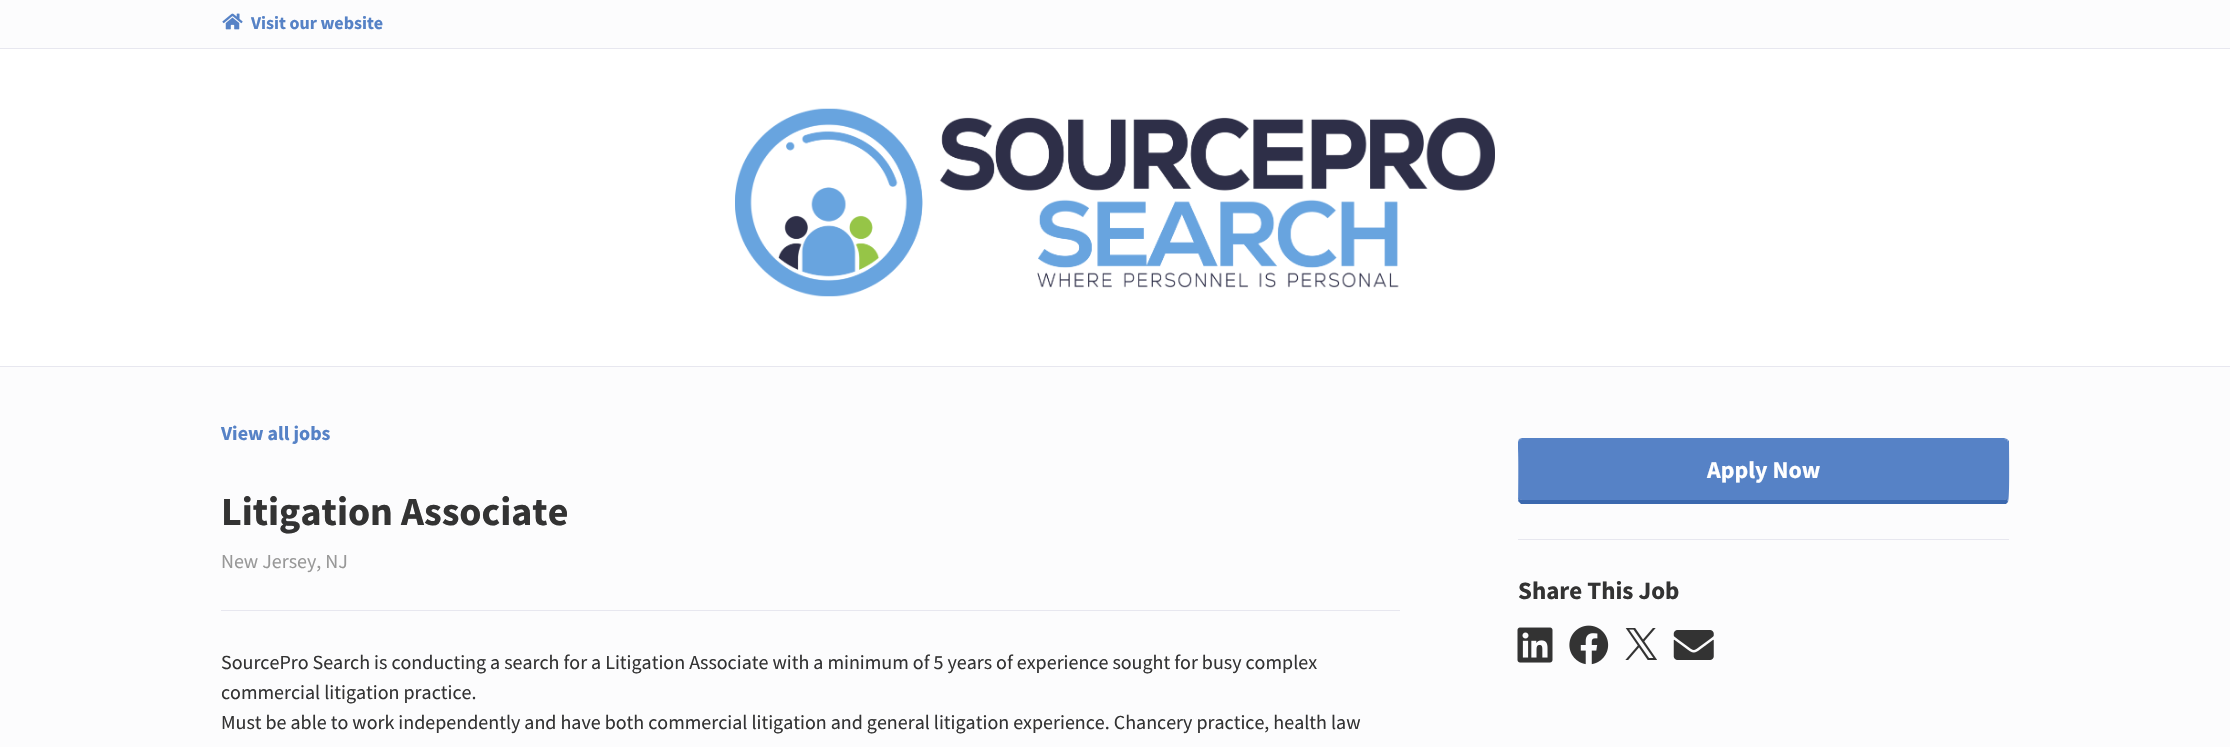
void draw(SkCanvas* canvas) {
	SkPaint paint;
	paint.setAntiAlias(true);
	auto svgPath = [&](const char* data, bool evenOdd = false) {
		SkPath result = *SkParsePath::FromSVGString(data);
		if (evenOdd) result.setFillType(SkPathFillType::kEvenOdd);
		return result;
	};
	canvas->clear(0xfffcfcfd);
	paint.setColor(0xffe7e7ef);
	canvas->drawRect(SkRect::MakeXYWH(0, 48, 2230, 1), paint);
	canvas->drawImageRect(SkImages::DeferredFromEncodedData(SkData::MakeFromFileName("img1.png")), SkRect::MakeXYWH(222, 13, 21, 17), SkSamplingOptions());
	SkFont f1(fontMgr->matchFamilyStyle("Source Sans Pro", SkFontStyle::Bold()), 18);
	f1.setSubpixel(true);
	paint.setColor(0xff5682c6);
	canvas->drawString("Visit our website", 251, 29, f1, paint);
	paint.setColor(0xffffffff);
	canvas->drawRect(SkRect::MakeXYWH(0, 49, 2230, 317), paint);
	canvas->drawImageRect(SkImages::DeferredFromEncodedData(SkData::MakeFromFileName("img2.png")), SkRect::MakeXYWH(735, 108, 760, 189), SkSamplingOptions());
	paint.setColor(0xffe7e7ef);
	canvas->drawRect(SkRect::MakeXYWH(0, 366, 2230, 1), paint);
	SkFont f2(fontMgr->matchFamilyStyle("Source Sans Pro", SkFontStyle::Bold()), 20);
	f2.setSubpixel(true);
	paint.setColor(0xff5682c6);
	canvas->drawString("View all jobs", 221, 440, f2, paint);
	SkFont f3(fontMgr->matchFamilyStyle("Source Sans Pro", SkFontStyle::Bold()), 40);
	f3.setSubpixel(true);
	paint.setColor(0xff333333);
	canvas->drawString("Litigation Associate", 221, 525, f3, paint);
	SkFont f4(fontMgr->matchFamilyStyle("Source Sans Pro", SkFontStyle::Normal()), 20);
	f4.setSubpixel(true);
	paint.setColor(0xff989898);
	canvas->drawString("New Jersey, NJ", 221, 568, f4, paint);
	paint.setColor(0xffe7e7ef);
	canvas->drawRect(SkRect::MakeXYWH(221, 610, 1179, 1), paint);
	paint.setColor(0xff333333);
	canvas->drawString("SourcePro Search is conducting a search for a Litigation Associate with a minimum of 5 years of experience sought for busy complex", 221, 669, f4, paint);
	canvas->drawString("commercial litigation practice.", 221, 699, f4, paint);
	canvas->drawString("Must be able to work independently and have both commercial litigation and general litigation experience. Chancery practice, health law", 221, 729, f4, paint);
	paint.setColor(0xff5682c6);
	canvas->drawPath(svgPath("M1522 439H2004C2006 439 2008 440 2008 442V499C2008 499 2006 500 2004 500H1522C1520 500 1519 499 1519 499V442C1519 440 1520 439 1522 439Z"), paint);
	canvas->drawPath(svgPath("M1522 438L1519 439L1520 440L1522 439H2004L2007 440V439L2004 438Z"), paint);
	canvas->drawPath(svgPath("M2007 439L2009 441C2009 448 2010 500 2008 502L2007 499H2008V441L2007 440Z"), paint);
	paint.setColor(0xff3b68ae);
	canvas->drawPath(svgPath("M1521 504C1520 503 1519 502 1518 501L1519 499L1522 500H2004L2007 499L2008 502L2006 504Z"), paint);
	paint.setColor(0xff5682c6);
	canvas->drawPath(svgPath("M1519 439L1518 442V501L1519 499C1519 492 1518 442 1520 440Z"), paint);
	SkFont f5(fontMgr->matchFamilyStyle("Source Sans Pro", SkFontStyle::Bold()), 24);
	f5.setSubpixel(true);
	paint.setColor(0xffffffff);
	canvas->drawString("Apply Now", 1707, 478, f5, paint);
	paint.setColor(0xffe7e7ef);
	canvas->drawRect(SkRect::MakeXYWH(1518, 539, 491, 1), paint);
	SkFont f6(fontMgr->matchFamilyStyle("Source Sans Pro", SkFontStyle::Bold()), 25);
	f6.setSubpixel(true);
	paint.setColor(0xff333333);
	canvas->drawString("Share This Job", 1518, 599, f6, paint);
	canvas->drawImageRect(SkImages::DeferredFromEncodedData(SkData::MakeFromFileName("img3.png")), SkRect::MakeXYWH(1517, 627, 36, 36), SkSamplingOptions());
	canvas->drawImageRect(SkImages::DeferredFromEncodedData(SkData::MakeFromFileName("img4.png")), SkRect::MakeXYWH(1569, 625, 40, 40), SkSamplingOptions());
	canvas->drawImageRect(SkImages::DeferredFromEncodedData(SkData::MakeFromFileName("img5.png")), SkRect::MakeXYWH(1625, 628, 32, 32), SkSamplingOptions());
	canvas->drawImageRect(SkImages::DeferredFromEncodedData(SkData::MakeFromFileName("img6.png")), SkRect::MakeXYWH(1673, 630, 41, 30), SkSamplingOptions());
}
